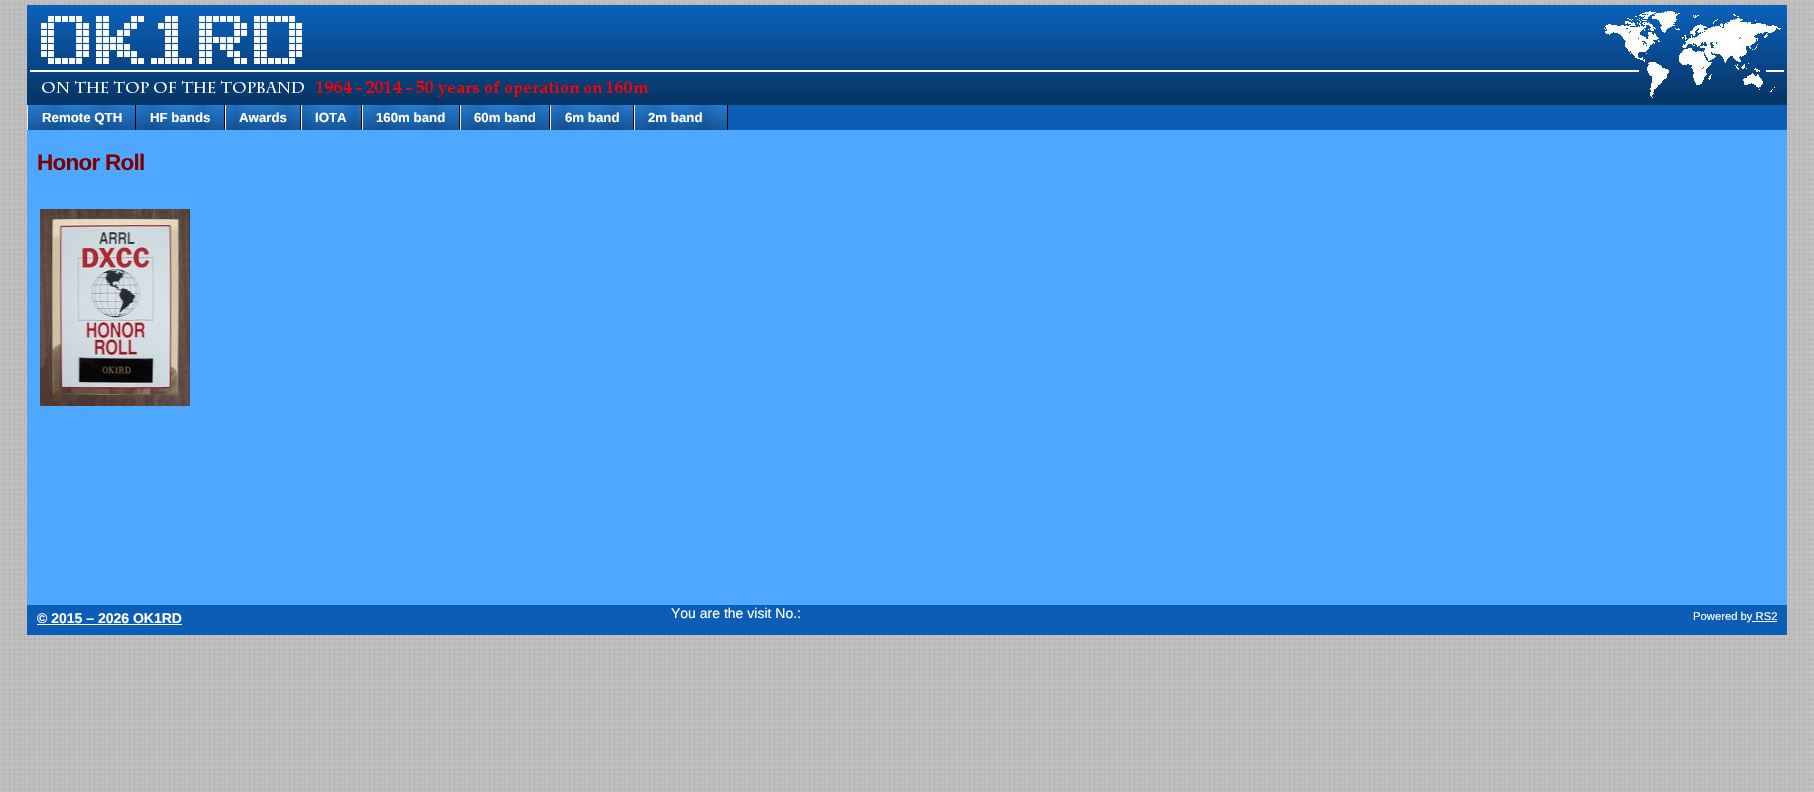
void draw(SkCanvas* canvas) {
	SkPaint paint;
	paint.setAntiAlias(true);
	auto spacedText = [&](const char* s, float x, float y, const SkFont& font, const SkPaint& ink, float letter, float word) {
		std::vector<SkGlyphID> glyphs(font.countText(s, strlen(s), SkTextEncoding::kUTF8));
		std::vector<float> xs(glyphs.size());
		font.textToGlyphs(s, strlen(s), SkTextEncoding::kUTF8, glyphs);
		font.getXPos(glyphs, xs, x);
		float extra = 0;
		for (size_t i = 0; i < glyphs.size(); i++) {
			xs[i] += extra;
			extra += letter + word * (glyphs[i] == font.unicharToGlyph(' '));
		}
		canvas->drawTextBlob(SkTextBlob::MakeFromPosHGlyphs(glyphs, xs, y, font), 0, 0, ink);
	};
	canvas->clear(0xffffffff);
	canvas->drawImageRect(SkImages::DeferredFromEncodedData(SkData::MakeFromFileName("img1.png")), SkRect::MakeXYWH(0, 0, 1814, 792), SkSamplingOptions());
	canvas->drawImageRect(SkImages::DeferredFromEncodedData(SkData::MakeFromFileName("img2.png")), SkRect::MakeXYWH(27, 5, 1760, 100), SkSamplingOptions());
	canvas->drawImageRect(SkImages::DeferredFromEncodedData(SkData::MakeFromFileName("img3.png")), SkRect::MakeXYWH(27, 16, 621, 81), SkSamplingOptions());
	canvas->drawImageRect(SkImages::DeferredFromEncodedData(SkData::MakeFromFileName("img4.png")), SkRect::MakeXYWH(1604, 11, 183, 87), SkSamplingOptions());
	paint.setColor(0xff0b5db5);
	canvas->drawRect(SkRect::MakeXYWH(728, 105, 1059, 25), paint);
	canvas->drawImageRect(SkImages::DeferredFromEncodedData(SkData::MakeFromFileName("img5.png")), SkRect::MakeXYWH(28, 105, 107, 25), SkSamplingOptions());
	paint.setColor(0xff000000);
	canvas->drawRect(SkRect::MakeXYWH(135, 105, 1, 25), paint);
	paint.setColor(0xffeeeeee);
	canvas->drawRect(SkRect::MakeXYWH(27, 105, 1, 25), paint);
	SkFont f1(fontMgr->matchFamilyStyle("Liberation Sans", SkFontStyle::Bold()), 13.25);
	f1.setSubpixel(true);
	paint.setColor(0xffffffff);
	canvas->drawString("Remote QTH", 42, 122, f1, paint);
	canvas->drawImageRect(SkImages::DeferredFromEncodedData(SkData::MakeFromFileName("img6.png")), SkRect::MakeXYWH(136, 105, 88, 25), SkSamplingOptions());
	paint.setColor(0xff000000);
	canvas->drawRect(SkRect::MakeXYWH(224, 105, 1, 25), paint);
	paint.setColor(0xffffffff);
	canvas->drawString("HF bands", 150, 122, f1, paint);
	canvas->drawImageRect(SkImages::DeferredFromEncodedData(SkData::MakeFromFileName("img7.png")), SkRect::MakeXYWH(226, 105, 74, 25), SkSamplingOptions());
	paint.setColor(0xff000000);
	canvas->drawRect(SkRect::MakeXYWH(300, 105, 1, 25), paint);
	paint.setColor(0xffeeeeee);
	canvas->drawRect(SkRect::MakeXYWH(225, 105, 1, 25), paint);
	paint.setColor(0xffffffff);
	canvas->drawString("Awards", 239, 122, f1, paint);
	canvas->drawImageRect(SkImages::DeferredFromEncodedData(SkData::MakeFromFileName("img8.png")), SkRect::MakeXYWH(302, 105, 59, 25), SkSamplingOptions());
	paint.setColor(0xff000000);
	canvas->drawRect(SkRect::MakeXYWH(361, 105, 1, 25), paint);
	paint.setColor(0xffeeeeee);
	canvas->drawRect(SkRect::MakeXYWH(301, 105, 1, 25), paint);
	paint.setColor(0xffffffff);
	canvas->drawString("IOTA", 315, 122, f1, paint);
	canvas->drawImageRect(SkImages::DeferredFromEncodedData(SkData::MakeFromFileName("img9.png")), SkRect::MakeXYWH(363, 105, 96, 25), SkSamplingOptions());
	paint.setColor(0xff000000);
	canvas->drawRect(SkRect::MakeXYWH(459, 105, 1, 25), paint);
	paint.setColor(0xffeeeeee);
	canvas->drawRect(SkRect::MakeXYWH(362, 105, 1, 25), paint);
	paint.setColor(0xffffffff);
	canvas->drawString("160m band", 376, 122, f1, paint);
	canvas->drawImageRect(SkImages::DeferredFromEncodedData(SkData::MakeFromFileName("img10.png")), SkRect::MakeXYWH(461, 105, 88, 25), SkSamplingOptions());
	paint.setColor(0xff000000);
	canvas->drawRect(SkRect::MakeXYWH(549, 105, 1, 25), paint);
	paint.setColor(0xffeeeeee);
	canvas->drawRect(SkRect::MakeXYWH(460, 105, 1, 25), paint);
	paint.setColor(0xffffffff);
	canvas->drawString("60m band", 474, 122, f1, paint);
	canvas->drawImageRect(SkImages::DeferredFromEncodedData(SkData::MakeFromFileName("img11.png")), SkRect::MakeXYWH(551, 105, 82, 25), SkSamplingOptions());
	paint.setColor(0xff000000);
	canvas->drawRect(SkRect::MakeXYWH(633, 105, 1, 25), paint);
	paint.setColor(0xffeeeeee);
	canvas->drawRect(SkRect::MakeXYWH(550, 105, 1, 25), paint);
	paint.setColor(0xffffffff);
	canvas->drawString("6m band", 565, 122, f1, paint);
	canvas->drawImageRect(SkImages::DeferredFromEncodedData(SkData::MakeFromFileName("img12.png")), SkRect::MakeXYWH(635, 105, 92, 25), SkSamplingOptions());
	paint.setColor(0xff000000);
	canvas->drawRect(SkRect::MakeXYWH(727, 105, 1, 25), paint);
	paint.setColor(0xffeeeeee);
	canvas->drawRect(SkRect::MakeXYWH(634, 105, 1, 25), paint);
	paint.setColor(0xffffffff);
	canvas->drawString("2m band", 648, 122, f1, paint);
	paint.setColor(0xff4fa8ff);
	canvas->drawRect(SkRect::MakeXYWH(27, 130, 1760, 475), paint);
	SkFont f2(fontMgr->matchFamilyStyle("Liberation Sans", SkFontStyle::Bold()), 22.5);
	f2.setSubpixel(true);
	paint.setColor(0xff800000);
	spacedText("Honor Roll", 37, 170, f2, paint, -0.75, 0);
	canvas->drawImageRect(SkImages::DeferredFromEncodedData(SkData::MakeFromFileName("img13.png")), SkRect::MakeXYWH(40, 209, 150, 197), SkSamplingOptions());
	paint.setColor(0xff0b5db5);
	canvas->drawRect(SkRect::MakeXYWH(27, 605, 1760, 30), paint);
	SkFont f3(fontMgr->matchFamilyStyle("Liberation Sans", SkFontStyle::Bold()), 14);
	f3.setSubpixel(true);
	paint.setColor(0xffffffff);
	canvas->drawString("© 2015 – 2026 OK1RD", 37, 623, f3, paint);
	canvas->drawRect(SkRect::MakeXYWH(37, 624, 145, 1), paint);
	SkFont f4(fontMgr->matchFamilyStyle("Liberation Sans", SkFontStyle::Normal()), 14);
	f4.setSubpixel(true);
	canvas->drawString("You are the visit No.:", 671, 618, f4, paint);
	SkFont f5(fontMgr->matchFamilyStyle("Liberation Sans", SkFontStyle::Normal()), 11.25);
	f5.setSubpixel(true);
	canvas->drawString("Powered by RS2", 1693, 620, f5, paint);
	canvas->drawRect(SkRect::MakeXYWH(1752, 621, 25, 1), paint);
}
